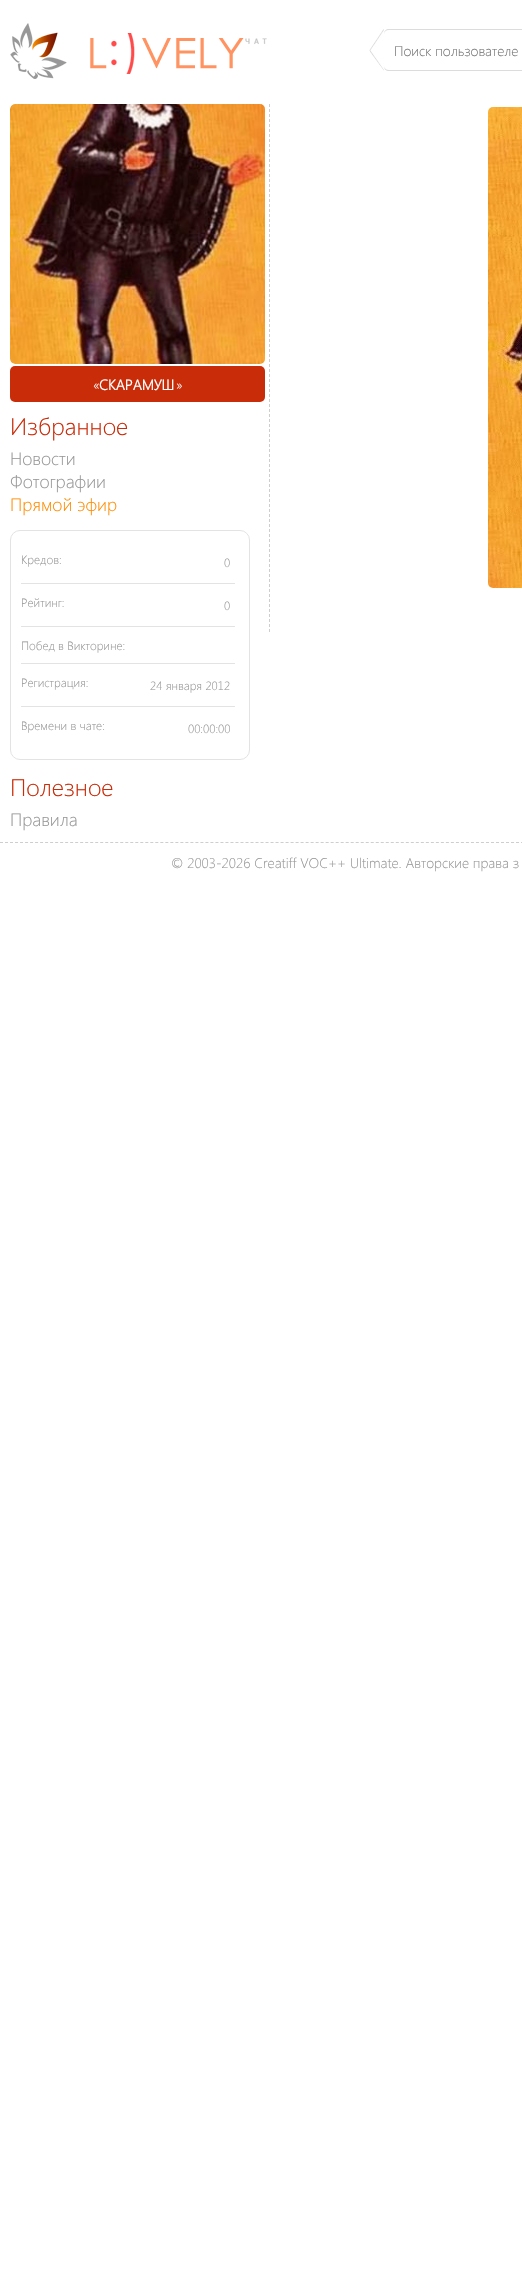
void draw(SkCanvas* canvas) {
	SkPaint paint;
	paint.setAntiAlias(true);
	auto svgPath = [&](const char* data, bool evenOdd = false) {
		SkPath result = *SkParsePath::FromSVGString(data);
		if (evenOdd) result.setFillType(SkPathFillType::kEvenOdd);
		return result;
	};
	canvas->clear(0xffffffff);
	canvas->drawImageRect(SkImages::DeferredFromEncodedData(SkData::MakeFromFileName("img1.png")), SkRect::MakeXYWH(10, 23, 257, 56), SkSamplingOptions());
	canvas->drawImageRect(SkImages::DeferredFromEncodedData(SkData::MakeFromFileName("img2.png")), SkRect::MakeXYWH(369, 29, 15, 42), SkSamplingOptions());
	paint.setColor(0xffdcdcdc);
	canvas->drawPath(svgPath("M389 29H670C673 29 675 31 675 34V66C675 69 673 71 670 71H389C386 71 384 69 384 66V34C384 31 386 29 389 29ZM389 30H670C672 30 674 32 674 34V66C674 68 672 70 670 70H389C386 70 384 68 384 66V34C384 32 386 30 389 30Z", true), paint);
	SkFont f1(fontMgr->matchFamilyStyle("Segoe UI", SkFontStyle(300, SkFontStyle::kNormal_Width, SkFontStyle::kUpright_Slant)), 14);
	f1.setSubpixel(true);
	paint.setColor(0xff757575);
	canvas->drawString("Поиск пользователе", 394, 56, f1, paint);
	canvas->drawImageRect(SkImages::DeferredFromEncodedData(SkData::MakeFromFileName("img3.png")), SkRect::MakeXYWH(10, 104, 255, 260), SkSamplingOptions());
	paint.setColor(0xffc92c09);
	canvas->drawRoundRect(SkRect::MakeXYWH(10, 366, 255, 36), 5, 5, paint);
	SkFont f2(fontMgr->matchFamilyStyle("Segoe UI", SkFontStyle(300, SkFontStyle::kNormal_Width, SkFontStyle::kUpright_Slant)), 14.5);
	f2.setSubpixel(true);
	paint.setColor(0xffffffff);
	canvas->drawString("«", 93, 390, f2, paint);
	SkFont f3(fontMgr->matchFamilyStyle("Segoe UI", SkFontStyle::Bold()), 14.5);
	f3.setSubpixel(true);
	canvas->drawString("СКАРАМУШ", 99, 390, f3, paint);
	canvas->drawString("»", 176, 390, f2, paint);
	SkFont f4(fontMgr->matchFamilyStyle("Segoe UI", SkFontStyle(300, SkFontStyle::kNormal_Width, SkFontStyle::kUpright_Slant)), 24);
	f4.setSubpixel(true);
	paint.setColor(0xffc92c09);
	canvas->drawString("Избранное", 10, 435, f4, paint);
	SkFont f5(fontMgr->matchFamilyStyle("Segoe UI", SkFontStyle(300, SkFontStyle::kNormal_Width, SkFontStyle::kUpright_Slant)), 18);
	f5.setSubpixel(true);
	paint.setColor(0xff979797);
	canvas->drawString("Новости", 10, 465, f5, paint);
	canvas->drawString("Фотографии", 10, 488, f5, paint);
	paint.setColor(0xffff8c00);
	canvas->drawString("Прямой эфир", 10, 511, f5, paint);
	paint.setStroke(true);
	paint.setStrokeWidth(1);
	paint.setColor(0xffe3e3e3);
	canvas->drawRoundRect(SkRect::MakeXYWH(10.5, 530.5, 239, 229), 9.5, 9.5, paint);
	paint.setStroke(false);
	canvas->drawRect(SkRect::MakeXYWH(21, 583, 214, 1), paint);
	SkFont f6(fontMgr->matchFamilyStyle("Segoe UI", SkFontStyle(300, SkFontStyle::kNormal_Width, SkFontStyle::kUpright_Slant)), 12);
	f6.setSubpixel(true);
	paint.setColor(0xff979797);
	canvas->drawString("Кредов:", 21, 564, f6, paint);
	canvas->drawString("0", 224, 567, f6, paint);
	paint.setColor(0xffe3e3e3);
	canvas->drawRect(SkRect::MakeXYWH(21, 626, 214, 1), paint);
	paint.setColor(0xff979797);
	canvas->drawString("Рейтинг:", 21, 607, f6, paint);
	canvas->drawString("0", 224, 610, f6, paint);
	paint.setColor(0xffe3e3e3);
	canvas->drawRect(SkRect::MakeXYWH(21, 663, 214, 1), paint);
	paint.setColor(0xff979797);
	canvas->drawString("Побед в Викторине:", 21, 650, f6, paint);
	paint.setColor(0xffe3e3e3);
	canvas->drawRect(SkRect::MakeXYWH(21, 706, 214, 1), paint);
	paint.setColor(0xff979797);
	canvas->drawString("Регистрация:", 21, 687, f6, paint);
	canvas->drawString("24 января 2012", 150, 690, f6, paint);
	canvas->drawString("Времени в чате:", 21, 730, f6, paint);
	canvas->drawString("00:00:00", 188, 733, f6, paint);
	paint.setColor(0xffc92c09);
	canvas->drawString("Полезное", 10, 796, f4, paint);
	paint.setColor(0xff979797);
	canvas->drawString("Правила", 10, 826, f5, paint);
	paint.setStroke(true);
	paint.setColor(0xffcfcecd);
	paint.setPathEffect(SkDashPathEffect::Make({{3, 2}}, 0));
	canvas->drawPath(svgPath("M269.5 104V632"), paint);
	paint.setPathEffect(nullptr);
	canvas->drawImageRect(SkImages::DeferredFromEncodedData(SkData::MakeFromFileName("img4.png")), SkRect::MakeXYWH(488, 107, 34, 481), SkSamplingOptions());
	paint.setPathEffect(SkDashPathEffect::Make({{3, 2.01f}}, 0));
	canvas->drawPath(svgPath("M0 842.5H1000"), paint);
	paint.setPathEffect(nullptr);
	paint.setStroke(false);
	paint.setColor(0xff979797);
	canvas->drawString("© 2003-2026 Creatiff VOC++ Ultimate. Авторские права з", 171, 868, f1, paint);
}
